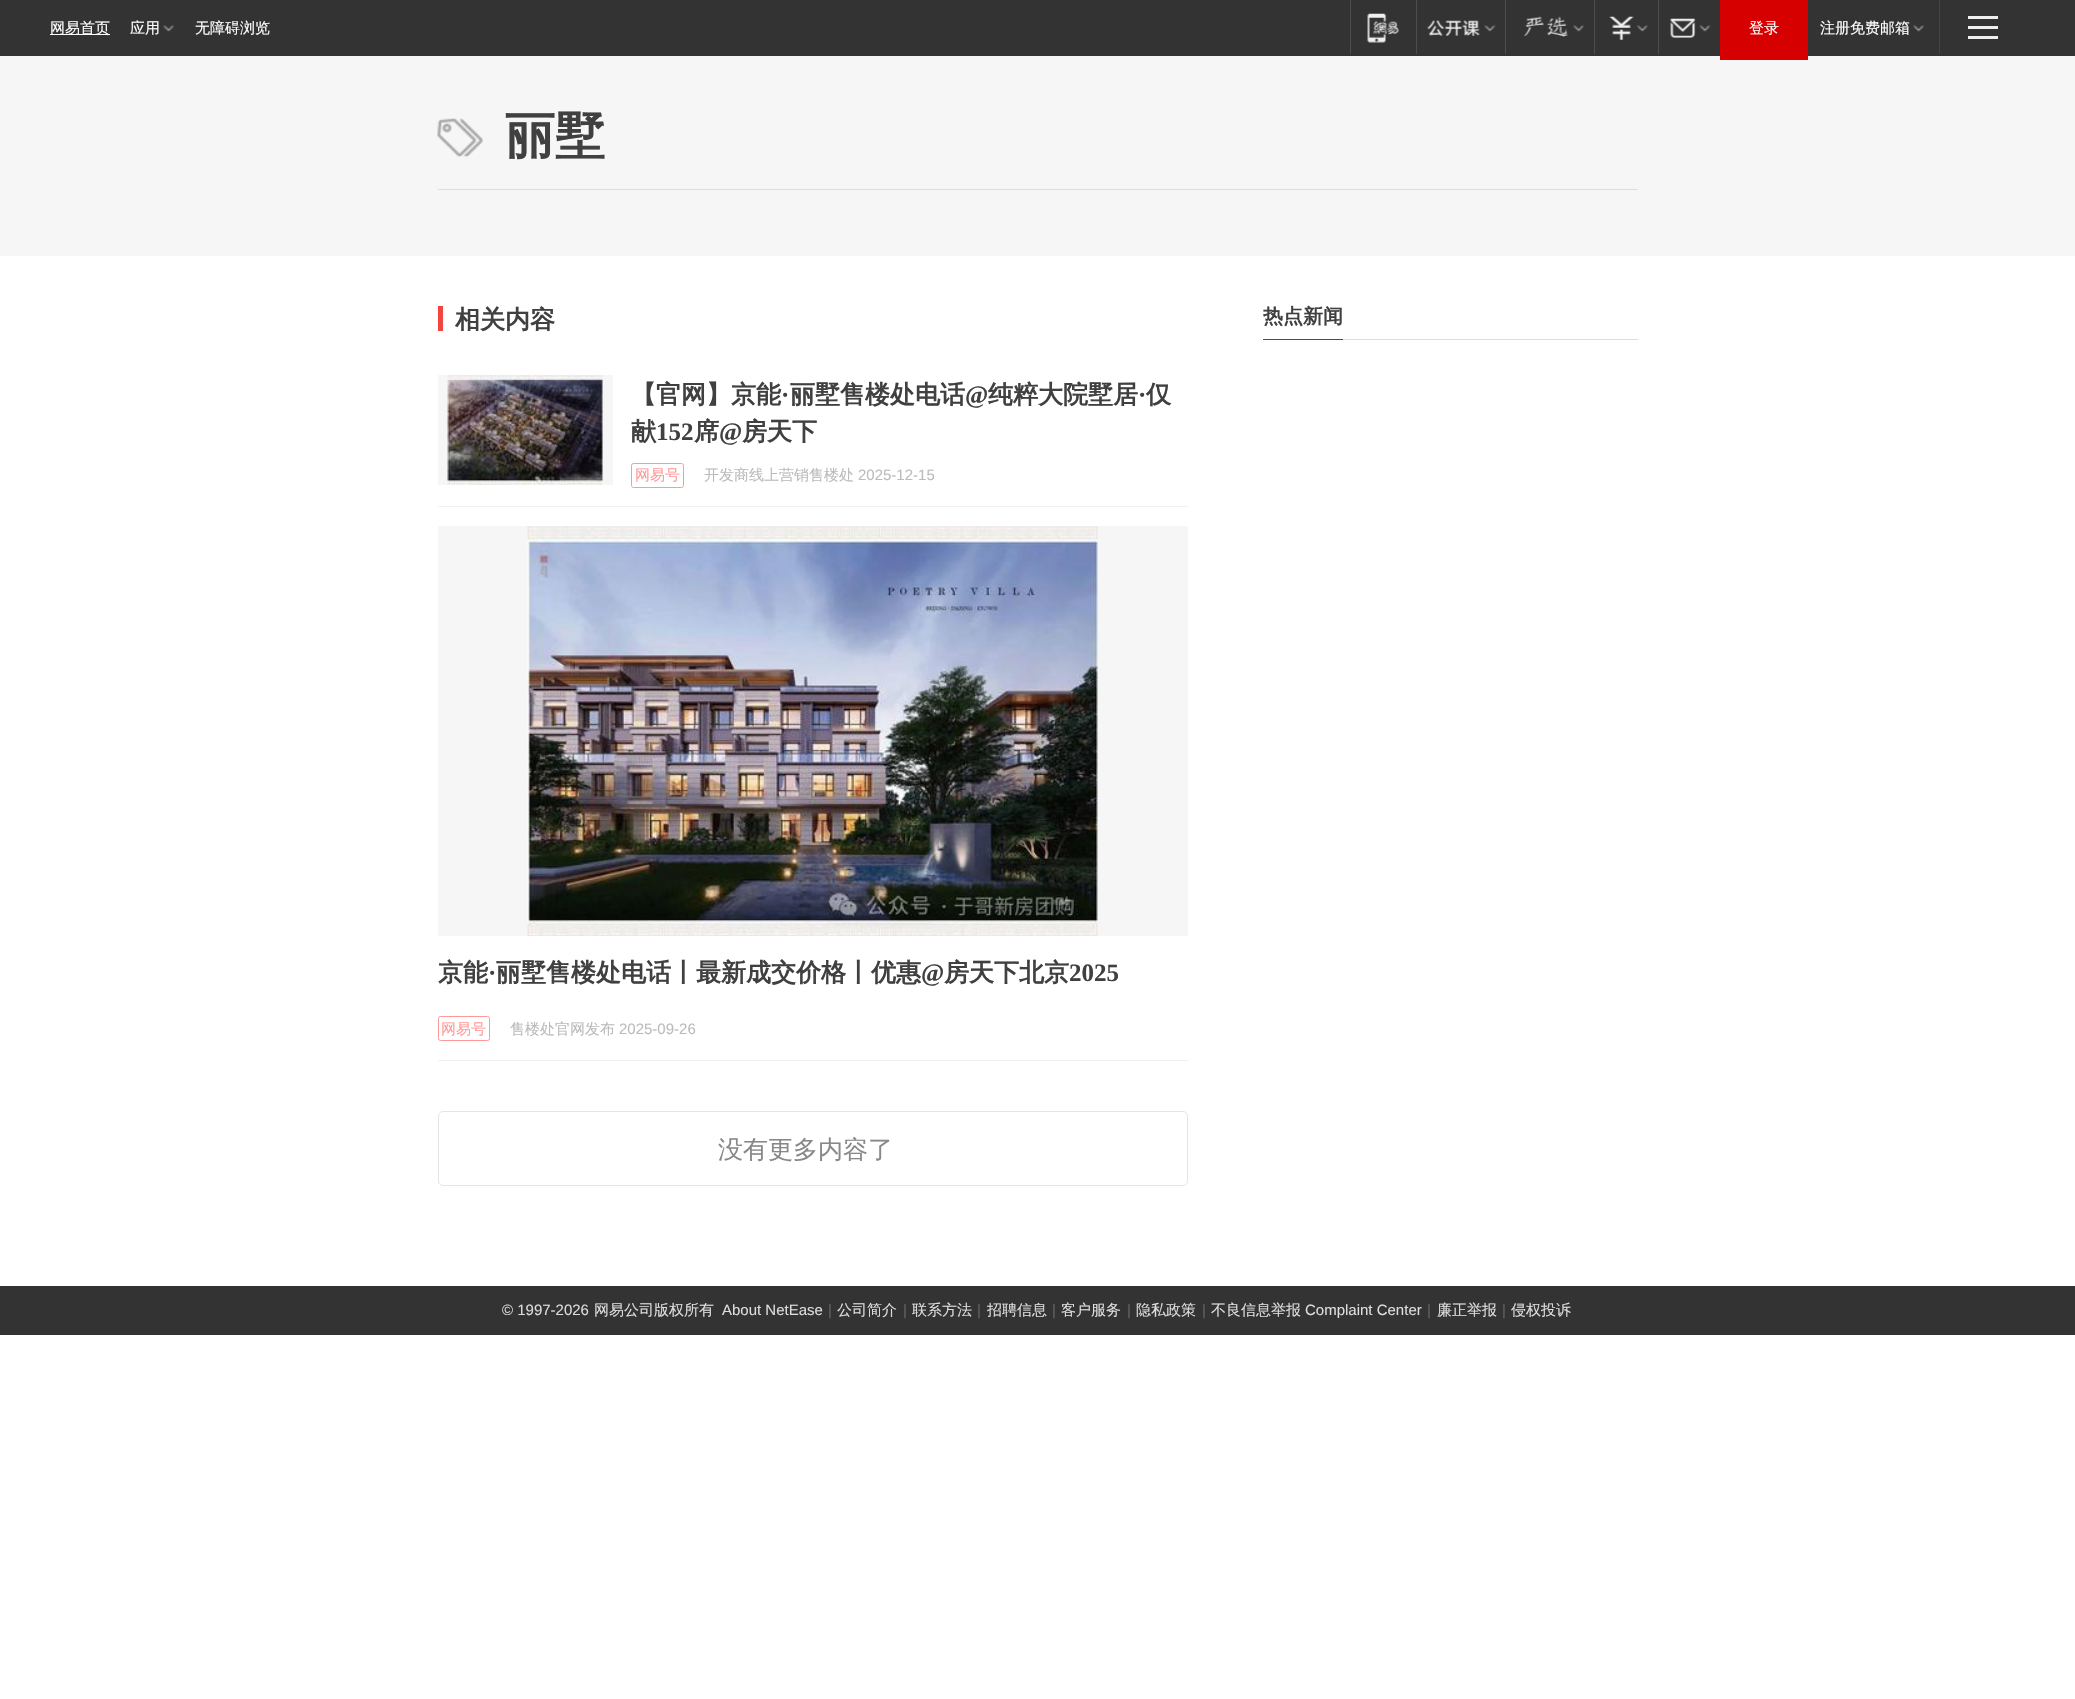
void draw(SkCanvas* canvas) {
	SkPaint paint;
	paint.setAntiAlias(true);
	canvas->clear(0xffffffff);
	paint.setColor(0xff333333);
	canvas->drawRect(SkRect::MakeXYWH(0, 0, 2075, 56), paint);
	paint.setColor(0xffffffff);
	canvas->drawRect(SkRect::MakeXYWH(50, 34, 60, 1), paint);
	SkFont f1(fontMgr->matchFamilyStyle("WenQuanYi Zen Hei", SkFontStyle(500, SkFontStyle::kNormal_Width, SkFontStyle::kUpright_Slant)), 15);
	f1.setSubpixel(true);
	canvas->drawString("网易首页", 50, 33, f1, paint);
	canvas->drawString("应用", 130, 33, f1, paint);
	canvas->drawImageRect(SkImages::DeferredFromEncodedData(SkData::MakeFromFileName("img1.png")), SkRect::MakeXYWH(163, 25, 12, 7), SkSamplingOptions());
	canvas->drawString("无障碍浏览", 195, 33, f1, paint);
	paint.setColor(0xff4d4d4d);
	canvas->drawRect(SkRect::MakeXYWH(1350, 0, 1, 54), paint);
	canvas->drawImageRect(SkImages::DeferredFromEncodedData(SkData::MakeFromFileName("img2.png")), SkRect::MakeXYWH(1367, 13, 32, 30), SkSamplingOptions());
	canvas->drawRect(SkRect::MakeXYWH(1416, 0, 1, 54), paint);
	canvas->drawImageRect(SkImages::DeferredFromEncodedData(SkData::MakeFromFileName("img3.png")), SkRect::MakeXYWH(1427, 20, 53, 16), SkSamplingOptions());
	canvas->drawImageRect(SkImages::DeferredFromEncodedData(SkData::MakeFromFileName("img4.png")), SkRect::MakeXYWH(1484, 25, 12, 7), SkSamplingOptions());
	canvas->drawRect(SkRect::MakeXYWH(1505, 0, 1, 54), paint);
	canvas->drawImageRect(SkImages::DeferredFromEncodedData(SkData::MakeFromFileName("img5.png")), SkRect::MakeXYWH(1524, 16, 44, 21), SkSamplingOptions());
	canvas->drawImageRect(SkImages::DeferredFromEncodedData(SkData::MakeFromFileName("img6.png")), SkRect::MakeXYWH(1573, 25, 12, 7), SkSamplingOptions());
	canvas->drawRect(SkRect::MakeXYWH(1594, 0, 1, 54), paint);
	canvas->drawImageRect(SkImages::DeferredFromEncodedData(SkData::MakeFromFileName("img7.png")), SkRect::MakeXYWH(1609, 16, 25, 24), SkSamplingOptions());
	canvas->drawImageRect(SkImages::DeferredFromEncodedData(SkData::MakeFromFileName("img8.png")), SkRect::MakeXYWH(1637, 25, 11, 7), SkSamplingOptions());
	canvas->drawRect(SkRect::MakeXYWH(1658, 0, 1, 54), paint);
	canvas->drawImageRect(SkImages::DeferredFromEncodedData(SkData::MakeFromFileName("img9.png")), SkRect::MakeXYWH(1670, 18, 26, 20), SkSamplingOptions());
	canvas->drawImageRect(SkImages::DeferredFromEncodedData(SkData::MakeFromFileName("img4.png")), SkRect::MakeXYWH(1699, 25, 12, 7), SkSamplingOptions());
	paint.setColor(0xfff6f6f6);
	canvas->drawRect(SkRect::MakeXYWH(0, 56, 2075, 200), paint);
	paint.setColor(0xffd60000);
	canvas->drawRect(SkRect::MakeXYWH(1720, 0, 88, 60), paint);
	paint.setColor(0xffffffff);
	canvas->drawString("登录", 1749, 33, f1, paint);
	canvas->drawString("注册免费邮箱", 1820, 33, f1, paint);
	canvas->drawImageRect(SkImages::DeferredFromEncodedData(SkData::MakeFromFileName("img1.png")), SkRect::MakeXYWH(1913, 25, 12, 7), SkSamplingOptions());
	paint.setColor(0xff444444);
	canvas->drawRect(SkRect::MakeXYWH(1939, 0, 1, 54), paint);
	paint.setColor(0xffefefef);
	canvas->drawRect(SkRect::MakeXYWH(1968, 16, 30, 3), paint);
	canvas->drawRect(SkRect::MakeXYWH(1968, 26, 30, 3), paint);
	canvas->drawRect(SkRect::MakeXYWH(1968, 36, 30, 3), paint);
	canvas->drawImageRect(SkImages::DeferredFromEncodedData(SkData::MakeFromFileName("img10.png")), SkRect::MakeXYWH(437, 118, 46, 39), SkSamplingOptions());
	paint.setColor(0xffdddddd);
	canvas->drawRect(SkRect::MakeXYWH(438, 189, 1200, 1), paint);
	SkFont f2(fontMgr->matchFamilyStyle("WenQuanYi Zen Hei", SkFontStyle::Bold()), 50);
	f2.setSubpixel(true);
	paint.setColor(0xff404040);
	canvas->drawString("丽墅", 505, 153, f2, paint);
	paint.setColor(0xfff34540);
	canvas->drawRect(SkRect::MakeXYWH(438, 306, 5, 25), paint);
	SkFont f3(fontMgr->matchFamilyStyle("WenQuanYi Zen Hei", SkFontStyle::Bold()), 25);
	f3.setSubpixel(true);
	paint.setColor(0xff404040);
	canvas->drawString("相关内容", 455, 328, f3, paint);
	paint.setColor(0xfff0f0f0);
	canvas->drawRect(SkRect::MakeXYWH(438, 506, 750, 1), paint);
	paint.setColor(0xfff6f6f6);
	canvas->drawRect(SkRect::MakeXYWH(438, 375, 175, 110), paint);
	canvas->drawImageRect(SkImages::DeferredFromEncodedData(SkData::MakeFromFileName("img11.png")), SkRect::MakeXYWH(447, 375, 156, 110), SkSamplingOptions());
	paint.setColor(0xff404040);
	canvas->drawString("【官网】京能", 631, 403, f3, paint);
	SkFont f4(fontMgr->matchFamilyStyle("Liberation Serif", SkFontStyle::Bold()), 25);
	f4.setSubpixel(true);
	canvas->drawString("·", 781, 403, f4, paint);
	canvas->drawString("丽墅售楼处电话", 790, 403, f3, paint);
	canvas->drawString("@", 965, 403, f4, paint);
	canvas->drawString("纯粹大院墅居", 988, 403, f3, paint);
	canvas->drawString("·", 1138, 403, f4, paint);
	canvas->drawString("仅", 1146, 403, f3, paint);
	canvas->drawString("献", 631, 440, f3, paint);
	canvas->drawString("152", 656, 440, f4, paint);
	canvas->drawString("席", 694, 440, f3, paint);
	canvas->drawString("@", 719, 440, f4, paint);
	canvas->drawString("房天下", 742, 440, f3, paint);
	paint.setStroke(true);
	paint.setStrokeWidth(1);
	paint.setColor(0xffff9999);
	canvas->drawRoundRect(SkRect::MakeXYWH(631.5, 463.5, 52, 24), 2, 2, paint);
	paint.setStroke(false);
	canvas->drawString("网易号", 635, 480, f1, paint);
	paint.setColor(0xffbbbbbb);
	canvas->drawString("开发商线上营销售楼处", 704, 480, f1, paint);
	SkFont f5(fontMgr->matchFamilyStyle("Liberation Sans", SkFontStyle::Normal()), 15);
	f5.setSubpixel(true);
	canvas->drawString("2025-12-15", 858, 480, f5, paint);
	paint.setColor(0xfff0f0f0);
	canvas->drawRect(SkRect::MakeXYWH(438, 1060, 750, 1), paint);
	paint.setColor(0xfff6f6f6);
	canvas->drawRect(SkRect::MakeXYWH(438, 526, 750, 410), paint);
	canvas->drawImageRect(SkImages::DeferredFromEncodedData(SkData::MakeFromFileName("img12.png")), SkRect::MakeXYWH(527, 526, 571, 410), SkSamplingOptions());
	paint.setColor(0xff404040);
	canvas->drawString("京能", 438, 981, f3, paint);
	canvas->drawString("·", 488, 981, f4, paint);
	canvas->drawString("丽墅售楼处电话丨最新成交价格丨优惠", 496, 981, f3, paint);
	canvas->drawString("@", 921, 981, f4, paint);
	canvas->drawString("房天下北京", 944, 981, f3, paint);
	canvas->drawString("2025", 1069, 981, f4, paint);
	paint.setStroke(true);
	paint.setColor(0xffff9999);
	canvas->drawRoundRect(SkRect::MakeXYWH(438.5, 1016.5, 51, 24), 2, 2, paint);
	paint.setStroke(false);
	canvas->drawString("网易号", 441, 1034, f1, paint);
	paint.setColor(0xffbbbbbb);
	canvas->drawString("售楼处官网发布", 510, 1034, f1, paint);
	canvas->drawString("2025-09-26", 619, 1034, f5, paint);
	paint.setStroke(true);
	paint.setColor(0xffe5e5e5);
	canvas->drawRoundRect(SkRect::MakeXYWH(438.5, 1111.5, 749, 74), 4.5, 4.5, paint);
	SkFont f6(fontMgr->matchFamilyStyle("WenQuanYi Zen Hei", SkFontStyle(500, SkFontStyle::kNormal_Width, SkFontStyle::kUpright_Slant)), 25);
	f6.setSubpixel(true);
	paint.setStroke(false);
	paint.setColor(0xff888888);
	canvas->drawString("没有更多内容了", 718, 1158, f6, paint);
	paint.setColor(0xffdddddd);
	canvas->drawRect(SkRect::MakeXYWH(1343, 339, 295, 1), paint);
	SkFont f7(fontMgr->matchFamilyStyle("WenQuanYi Zen Hei", SkFontStyle::Bold()), 20);
	f7.setSubpixel(true);
	paint.setColor(0xff404040);
	canvas->drawString("热点新闻", 1263, 323, f7, paint);
	paint.setColor(0xffdb1011);
	canvas->drawRect(SkRect::MakeXYWH(1263, 339, 80, 1), paint);
	paint.setColor(0xff333333);
	canvas->drawRect(SkRect::MakeXYWH(0, 1286, 2075, 49), paint);
	paint.setColor(0xffdddddd);
	canvas->drawString("© 1997-2026", 502, 1315, f5, paint);
	canvas->drawString("网易公司版权所有", 594, 1315, f1, paint);
	canvas->drawString("About NetEase", 722, 1315, f5, paint);
	paint.setColor(0xff616161);
	canvas->drawString("|", 828, 1315, f5, paint);
	paint.setColor(0xffdddddd);
	canvas->drawString("公司简介", 837, 1315, f1, paint);
	paint.setColor(0xff616161);
	canvas->drawString("|", 903, 1315, f5, paint);
	paint.setColor(0xffdddddd);
	canvas->drawString("联系方法", 912, 1315, f1, paint);
	paint.setColor(0xff616161);
	canvas->drawString("|", 977, 1315, f5, paint);
	paint.setColor(0xffdddddd);
	canvas->drawString("招聘信息", 987, 1315, f1, paint);
	paint.setColor(0xff616161);
	canvas->drawString("|", 1052, 1315, f5, paint);
	paint.setColor(0xffdddddd);
	canvas->drawString("客户服务", 1061, 1315, f1, paint);
	paint.setColor(0xff616161);
	canvas->drawString("|", 1127, 1315, f5, paint);
	paint.setColor(0xffdddddd);
	canvas->drawString("隐私政策", 1136, 1315, f1, paint);
	paint.setColor(0xff616161);
	canvas->drawString("|", 1202, 1315, f5, paint);
	paint.setColor(0xffdddddd);
	canvas->drawString("不良信息举报", 1211, 1315, f1, paint);
	canvas->drawString("Complaint Center", 1305, 1315, f5, paint);
	paint.setColor(0xff616161);
	canvas->drawString("|", 1427, 1315, f5, paint);
	paint.setColor(0xffdddddd);
	canvas->drawString("廉正举报", 1437, 1315, f1, paint);
	paint.setColor(0xff616161);
	canvas->drawString("|", 1502, 1315, f5, paint);
	paint.setColor(0xffdddddd);
	canvas->drawString("侵权投诉", 1511, 1315, f1, paint);
}
